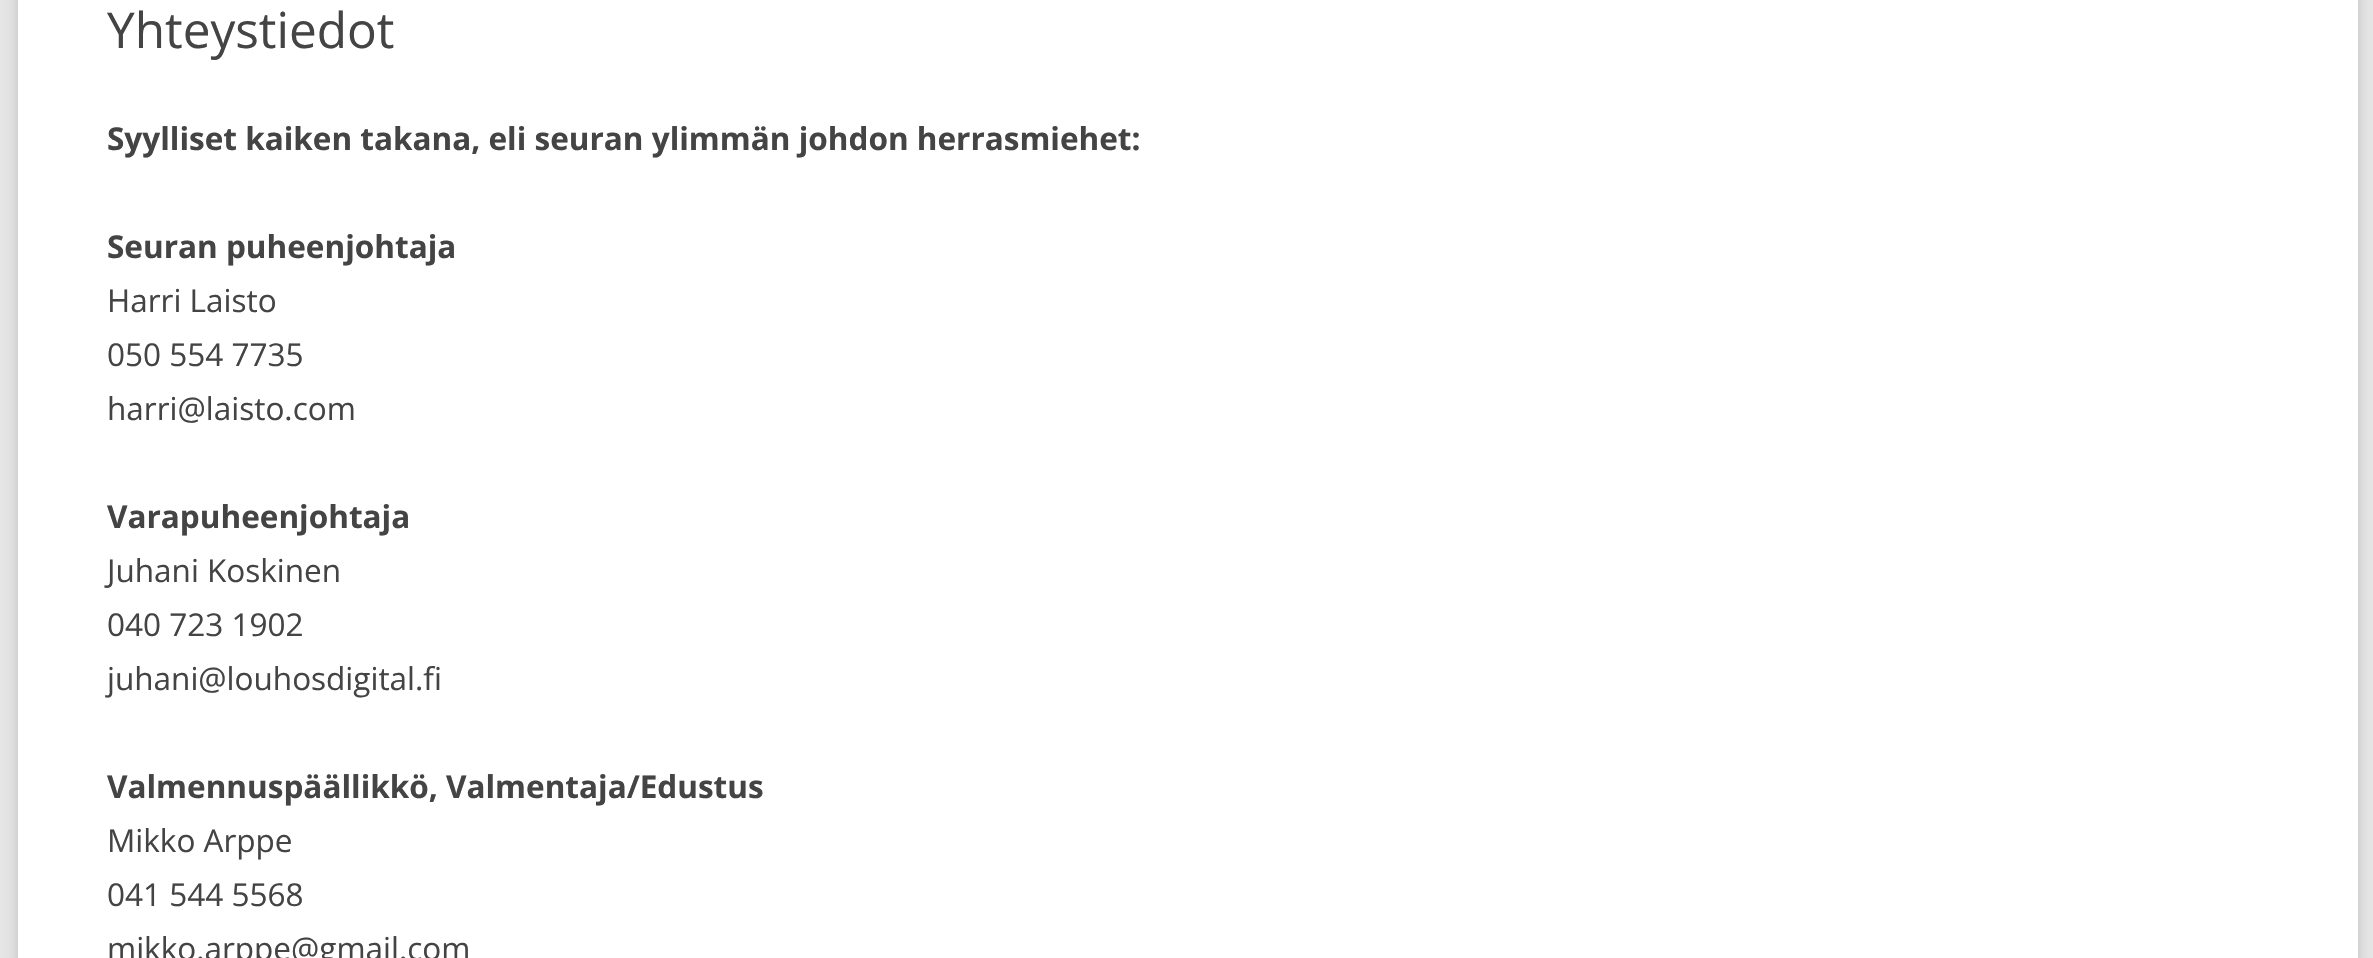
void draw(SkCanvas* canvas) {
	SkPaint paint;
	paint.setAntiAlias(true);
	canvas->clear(0xffe6e6e6);
	paint.setColor(0x4d646464);
	paint.setMaskFilter(SkMaskFilter::MakeBlur(kNormal_SkBlurStyle, 7));
	canvas->drawRect(SkRect::MakeXYWH(18, -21, 2340, 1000), paint);
	paint.setMaskFilter(nullptr);
	paint.setColor(0xffffffff);
	canvas->drawRect(SkRect::MakeXYWH(18, 0, 2340, 958), paint);
	SkFont f1(fontMgr->matchFamilyStyle("Open Sans", SkFontStyle::Normal()), 49.5);
	f1.setSubpixel(true);
	paint.setColor(0xff444444);
	canvas->drawString("Yhteystiedot", 107, 48, f1, paint);
	SkFont f2(fontMgr->matchFamilyStyle("Open Sans", SkFontStyle::Bold()), 31.5);
	f2.setSubpixel(true);
	canvas->drawString("Syylliset kaiken takana, eli seuran ylimmän johdon herrasmiehet:", 107, 150, f2, paint);
	canvas->drawString("Seuran puheenjohtaja", 107, 258, f2, paint);
	SkFont f3(fontMgr->matchFamilyStyle("Open Sans", SkFontStyle::Normal()), 31.5);
	f3.setSubpixel(true);
	canvas->drawString("Harri Laisto", 107, 312, f3, paint);
	canvas->drawString("050 554 7735", 107, 366, f3, paint);
	canvas->drawString("harri@laisto.com", 107, 420, f3, paint);
	canvas->drawString("Varapuheenjohtaja", 107, 528, f2, paint);
	canvas->drawString("Juhani Koskinen", 107, 582, f3, paint);
	canvas->drawString("040 723 1902", 107, 636, f3, paint);
	canvas->drawString("juhani@louhosdigital.fi", 107, 690, f3, paint);
	canvas->drawString("Valmennuspäällikkö, Valmentaja/Edustus", 107, 798, f2, paint);
	canvas->drawString("Mikko Arppe", 107, 852, f3, paint);
	canvas->drawString("041 544 5568", 107, 906, f3, paint);
	canvas->drawString("mikko.arppe@gmail.com", 107, 960, f3, paint);
}
